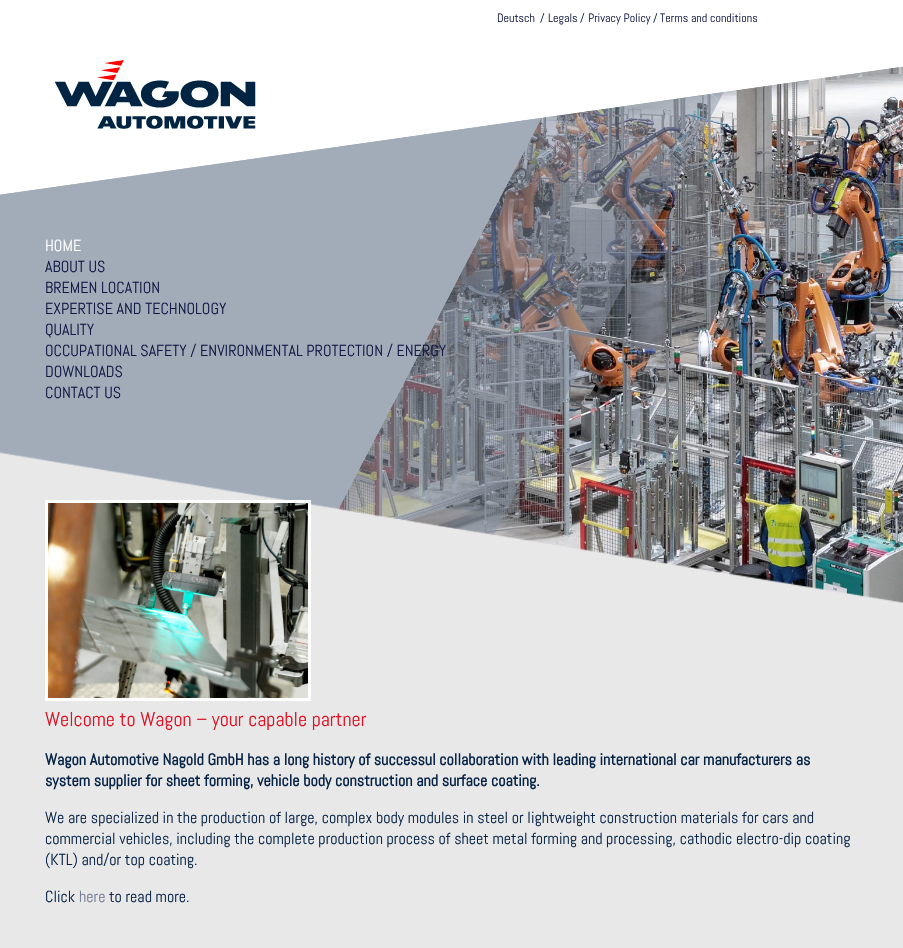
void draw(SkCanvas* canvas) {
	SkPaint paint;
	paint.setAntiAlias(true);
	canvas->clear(0xffe8e8e9);
	canvas->drawImageRect(SkImages::DeferredFromEncodedData(SkData::MakeFromFileName("img4.png")), SkRect::MakeXYWH(338, 66, 565, 537), SkSamplingOptions());
	canvas->drawImageRect(SkImages::DeferredFromEncodedData(SkData::MakeFromFileName("img1.png")), SkRect::MakeXYWH(0, 0, 903, 700), SkSamplingOptions());
	SkFont f1(fontMgr->matchFamilyStyle("Abel", SkFontStyle::Normal()), 12);
	f1.setSubpixel(true);
	paint.setColor(0xff121945);
	canvas->drawString("Deutsch", 497, 22, f1, paint);
	paint.setColor(0xff062345);
	canvas->drawString("/", 540, 22, f1, paint);
	paint.setColor(0xff121945);
	canvas->drawString("Legals", 548, 22, f1, paint);
	paint.setColor(0xff062345);
	canvas->drawString("/", 580, 22, f1, paint);
	paint.setColor(0xff121945);
	canvas->drawString("Privacy Policy", 588, 22, f1, paint);
	paint.setColor(0xff062345);
	canvas->drawString("/", 653, 22, f1, paint);
	paint.setColor(0xff121945);
	canvas->drawString("Terms and conditions", 660, 22, f1, paint);
	canvas->drawImageRect(SkImages::DeferredFromEncodedData(SkData::MakeFromFileName("img2.png")), SkRect::MakeXYWH(55, 60, 201, 69), SkSamplingOptions());
	SkFont f2(fontMgr->matchFamilyStyle("Abel", SkFontStyle::Normal()), 16);
	f2.setSubpixel(true);
	paint.setColor(0xffffffff);
	canvas->drawString("HOME", 45, 251, f2, paint);
	paint.setColor(0xff121945);
	canvas->drawString("ABOUT US", 45, 272, f2, paint);
	canvas->drawString("BREMEN LOCATION", 45, 293, f2, paint);
	canvas->drawString("EXPERTISE AND TECHNOLOGY", 45, 314, f2, paint);
	canvas->drawString("QUALITY", 45, 335, f2, paint);
	canvas->drawString("OCCUPATIONAL SAFETY / ENVIRONMENTAL PROTECTION / ENERGY", 45, 356, f2, paint);
	canvas->drawString("DOWNLOADS", 45, 377, f2, paint);
	canvas->drawString("CONTACT US", 45, 398, f2, paint);
	paint.setStroke(true);
	paint.setStrokeWidth(3);
	paint.setColor(0xffffffff);
	canvas->drawRect(SkRect::MakeXYWH(46.5, 501.5, 263, 198), paint);
	canvas->drawImageRect(SkImages::DeferredFromEncodedData(SkData::MakeFromFileName("img3.png")), SkRect::MakeXYWH(48, 503, 260, 195), SkSamplingOptions());
	SkFont f3(fontMgr->matchFamilyStyle("Abel", SkFontStyle::Normal()), 20);
	f3.setSubpixel(true);
	paint.setStroke(false);
	paint.setColor(0xffe10f21);
	canvas->drawString("Welcome to Wagon – your capable partner", 45, 726, f3, paint);
	SkFont f4(fontMgr->matchFamilyStyle("Abel", SkFontStyle::Bold()), 16);
	f4.setSubpixel(true);
	paint.setColor(0xff062345);
	canvas->drawString("Wagon Automotive Nagold GmbH has a long history of successul collaboration with leading international car manufacturers as", 45, 765, f4, paint);
	canvas->drawString("system supplier for sheet forming, vehicle body construction and surface coating.", 45, 786, f4, paint);
	canvas->drawString("We are specialized in the production of large, complex body modules in steel or lightweight construction materials for cars and", 45, 823, f2, paint);
	canvas->drawString("commercial vehicles, including the complete production process of sheet metal forming and processing, cathodic electro-dip coating", 45, 844, f2, paint);
	canvas->drawString("(KTL) and/or top coating.", 45, 865, f2, paint);
	canvas->drawString("Click", 45, 902, f2, paint);
	paint.setColor(0xff727b92);
	canvas->drawString("here", 79, 902, f2, paint);
	paint.setColor(0xff062345);
	canvas->drawString("to read more.", 109, 902, f2, paint);
}
